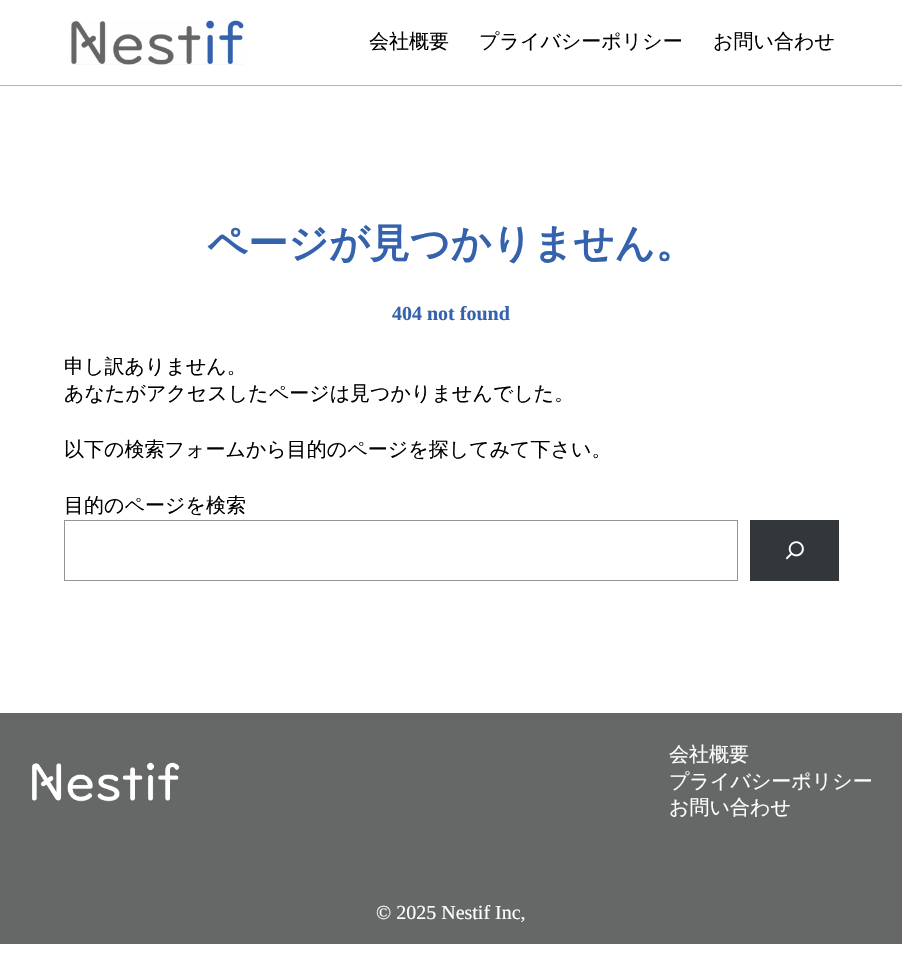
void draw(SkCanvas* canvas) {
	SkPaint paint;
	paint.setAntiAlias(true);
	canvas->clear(0xffffffff);
	paint.setColor(0xffabb8c3);
	canvas->drawRect(SkRect::MakeXYWH(0, 85, 902, 1), paint);
	canvas->drawImageRect(SkImages::DeferredFromEncodedData(SkData::MakeFromFileName("img1.png")), SkRect::MakeXYWH(71, 20, 173, 45), SkSamplingOptions());
	SkFont f1(fontMgr->matchFamilyStyle("WenQuanYi Zen Hei", SkFontStyle(500, SkFontStyle::kNormal_Width, SkFontStyle::kUpright_Slant)), 20);
	f1.setSubpixel(true);
	paint.setColor(0xff000000);
	canvas->drawString("会社概要", 369, 48, f1, paint);
	canvas->drawString("プライバシーポリシー", 479, 48, f1, paint);
	canvas->drawString("お問い合わせ", 713, 48, f1, paint);
	SkFont f2(fontMgr->matchFamilyStyle("WenQuanYi Zen Hei", SkFontStyle::Bold()), 40);
	f2.setSubpixel(true);
	paint.setColor(0xff3562ad);
	canvas->drawString("ページが見つかりません。", 207, 257, f2, paint);
	SkFont f3(fontMgr->matchFamilyStyle("Liberation Serif", SkFontStyle::Bold()), 20);
	f3.setSubpixel(true);
	canvas->drawString("404 not found", 392, 320, f3, paint);
	paint.setColor(0xff000000);
	canvas->drawString("申し訳ありません。", 64, 373, f1, paint);
	canvas->drawString("あなたがアクセスしたページは見つかりませんでした。", 64, 400, f1, paint);
	canvas->drawString("以下の検索フォームから目的のページを探してみて下さい。", 64, 456, f1, paint);
	canvas->drawString("目的のページを検索", 64, 512, f1, paint);
	paint.setStroke(true);
	paint.setStrokeWidth(1);
	paint.setColor(0xff949494);
	canvas->drawRect(SkRect::MakeXYWH(64.5, 520.5, 673, 60), paint);
	paint.setStroke(false);
	paint.setColor(0xff32373c);
	canvas->drawRect(SkRect::MakeXYWH(750, 520, 89, 61), paint);
	canvas->drawImageRect(SkImages::DeferredFromEncodedData(SkData::MakeFromFileName("img2.png")), SkRect::MakeXYWH(785, 541, 19, 19), SkSamplingOptions());
	paint.setColor(0xff666767);
	canvas->drawRect(SkRect::MakeXYWH(0, 713, 902, 231), paint);
	canvas->drawImageRect(SkImages::DeferredFromEncodedData(SkData::MakeFromFileName("img3.png")), SkRect::MakeXYWH(32, 762, 148, 40), SkSamplingOptions());
	paint.setColor(0xffffffff);
	canvas->drawString("会社概要", 669, 761, f1, paint);
	canvas->drawString("プライバシーポリシー", 669, 788, f1, paint);
	canvas->drawString("お問い合わせ", 669, 814, f1, paint);
	SkFont f4(fontMgr->matchFamilyStyle("Liberation Serif", SkFontStyle::Normal()), 20);
	f4.setSubpixel(true);
	canvas->drawString("© 2025 Nestif Inc,", 376, 919, f4, paint);
}
